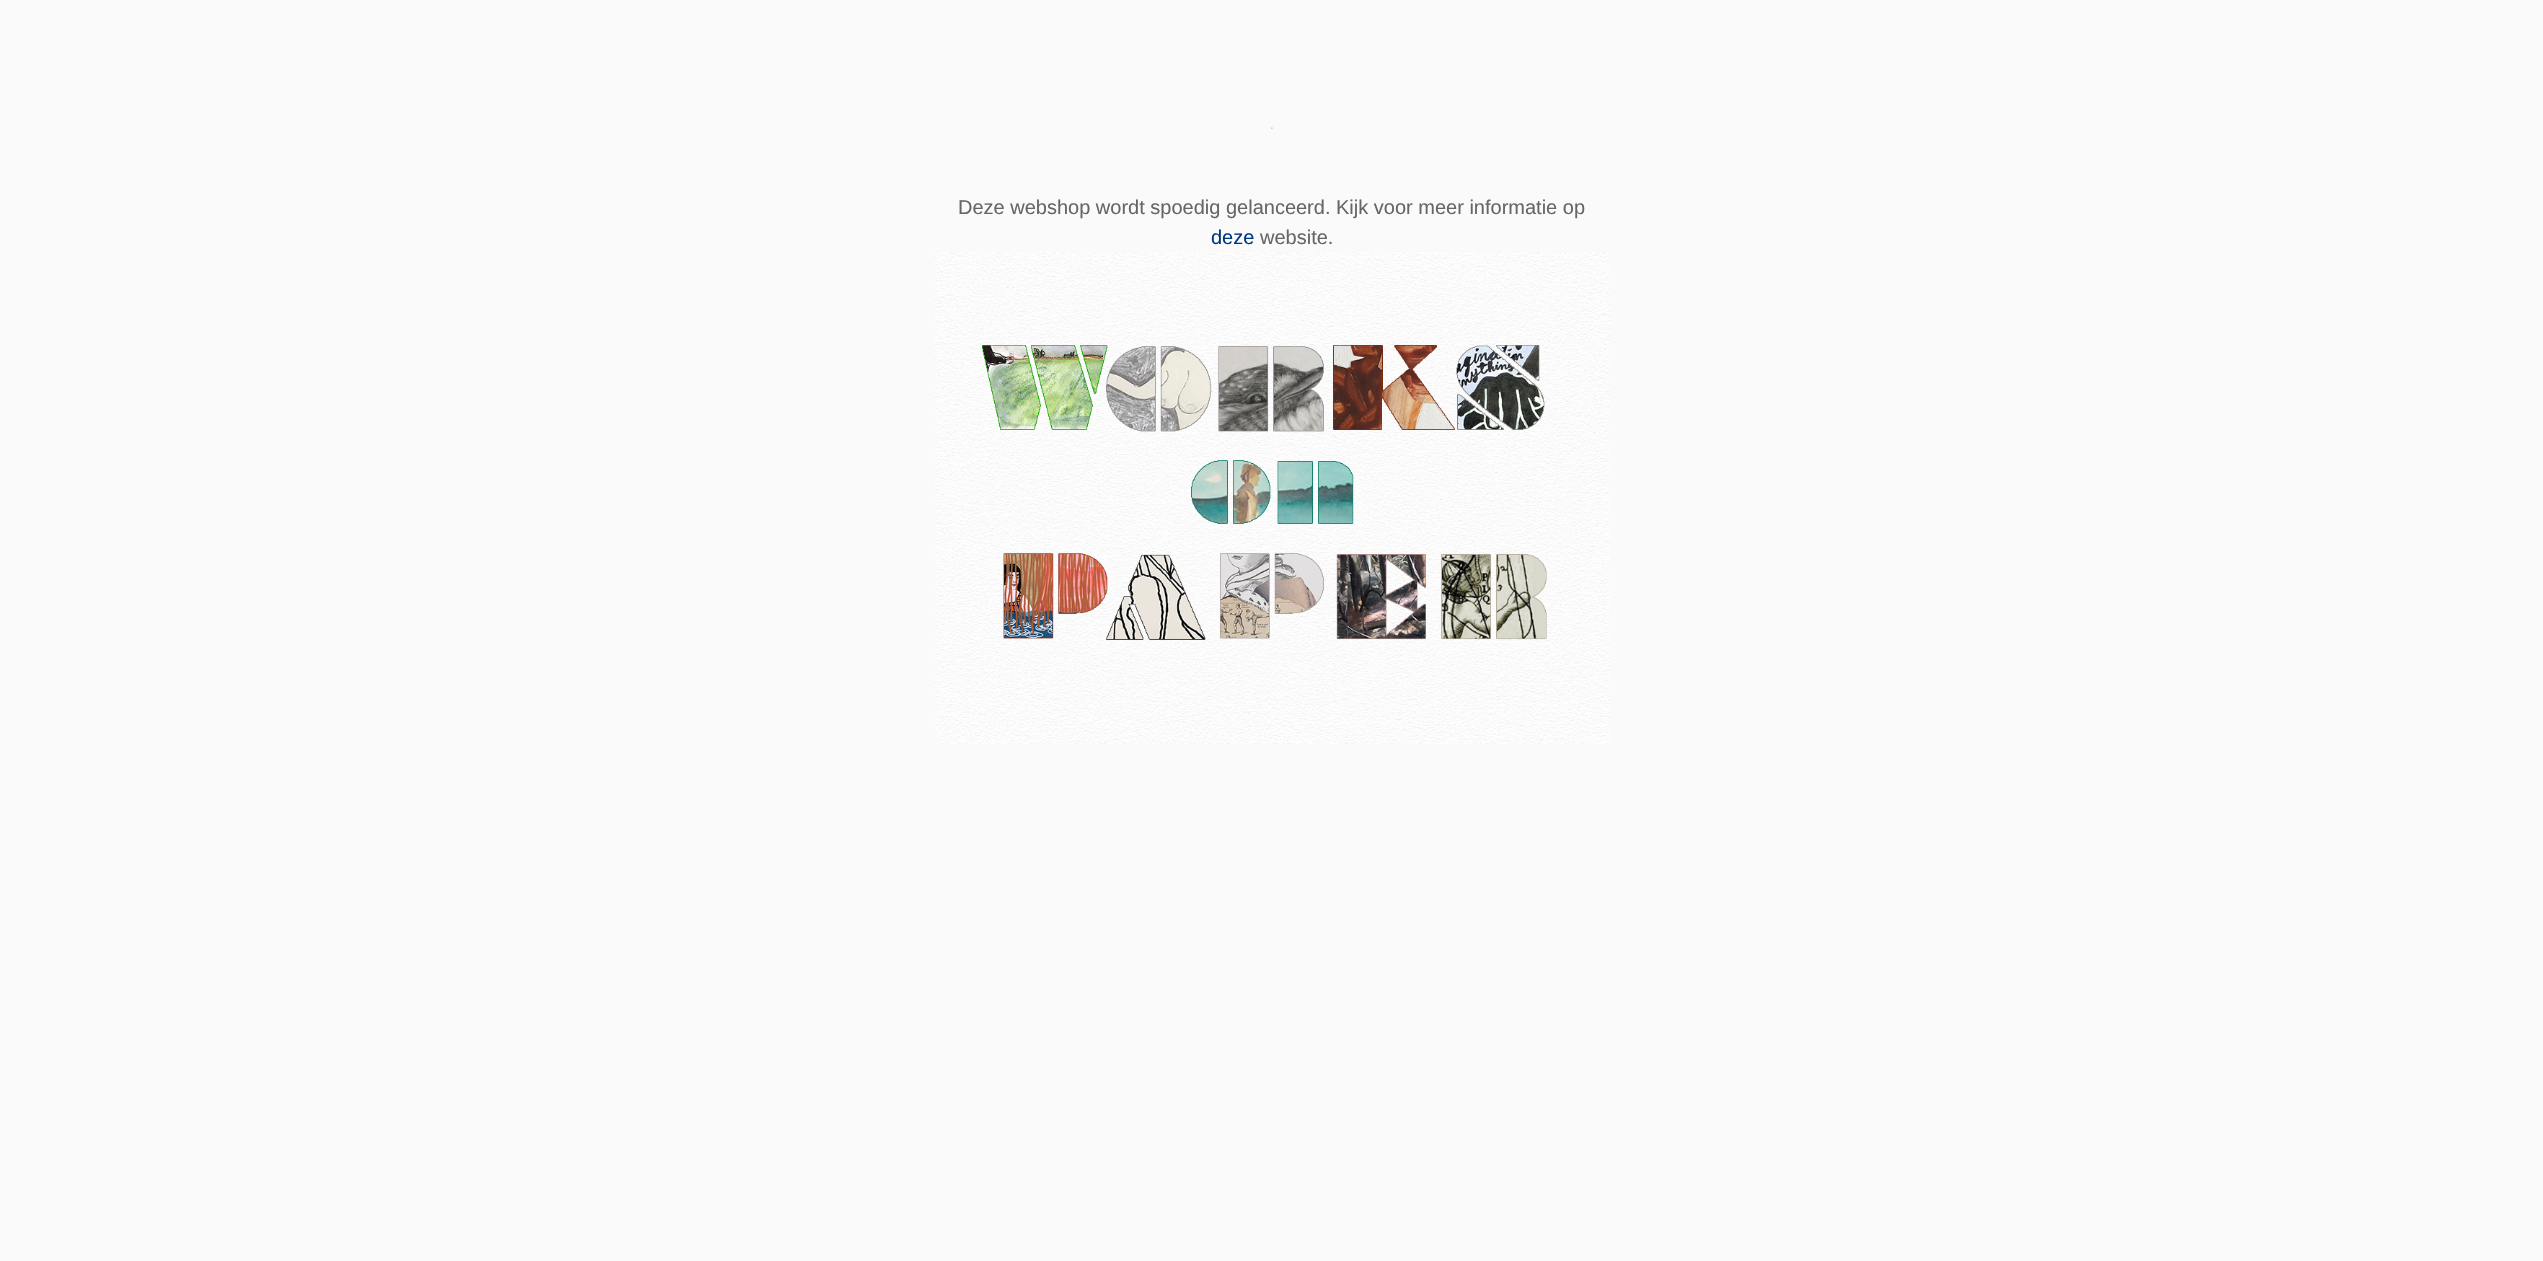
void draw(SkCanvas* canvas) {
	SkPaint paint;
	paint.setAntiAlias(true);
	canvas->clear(0xfffafafa);
	canvas->drawImageRect(SkImages::DeferredFromEncodedData(SkData::MakeFromFileName("img1.png")), SkRect::MakeXYWH(1271, 127, 2, 2), SkSamplingOptions());
	SkFont f1(fontMgr->matchFamilyStyle("Liberation Sans", SkFontStyle::Normal()), 20);
	f1.setSubpixel(true);
	paint.setColor(0xff666666);
	canvas->drawString("Deze webshop wordt spoedig gelanceerd. Kijk voor meer informatie op", 958, 214, f1, paint);
	paint.setColor(0xff00377f);
	canvas->drawString("deze", 1211, 244, f1, paint);
	paint.setColor(0xff666666);
	canvas->drawString("website.", 1260, 244, f1, paint);
	canvas->drawImageRect(SkImages::DeferredFromEncodedData(SkData::MakeFromFileName("img2.png")), SkRect::MakeXYWH(935, 252, 675, 492), SkSamplingOptions());
}
